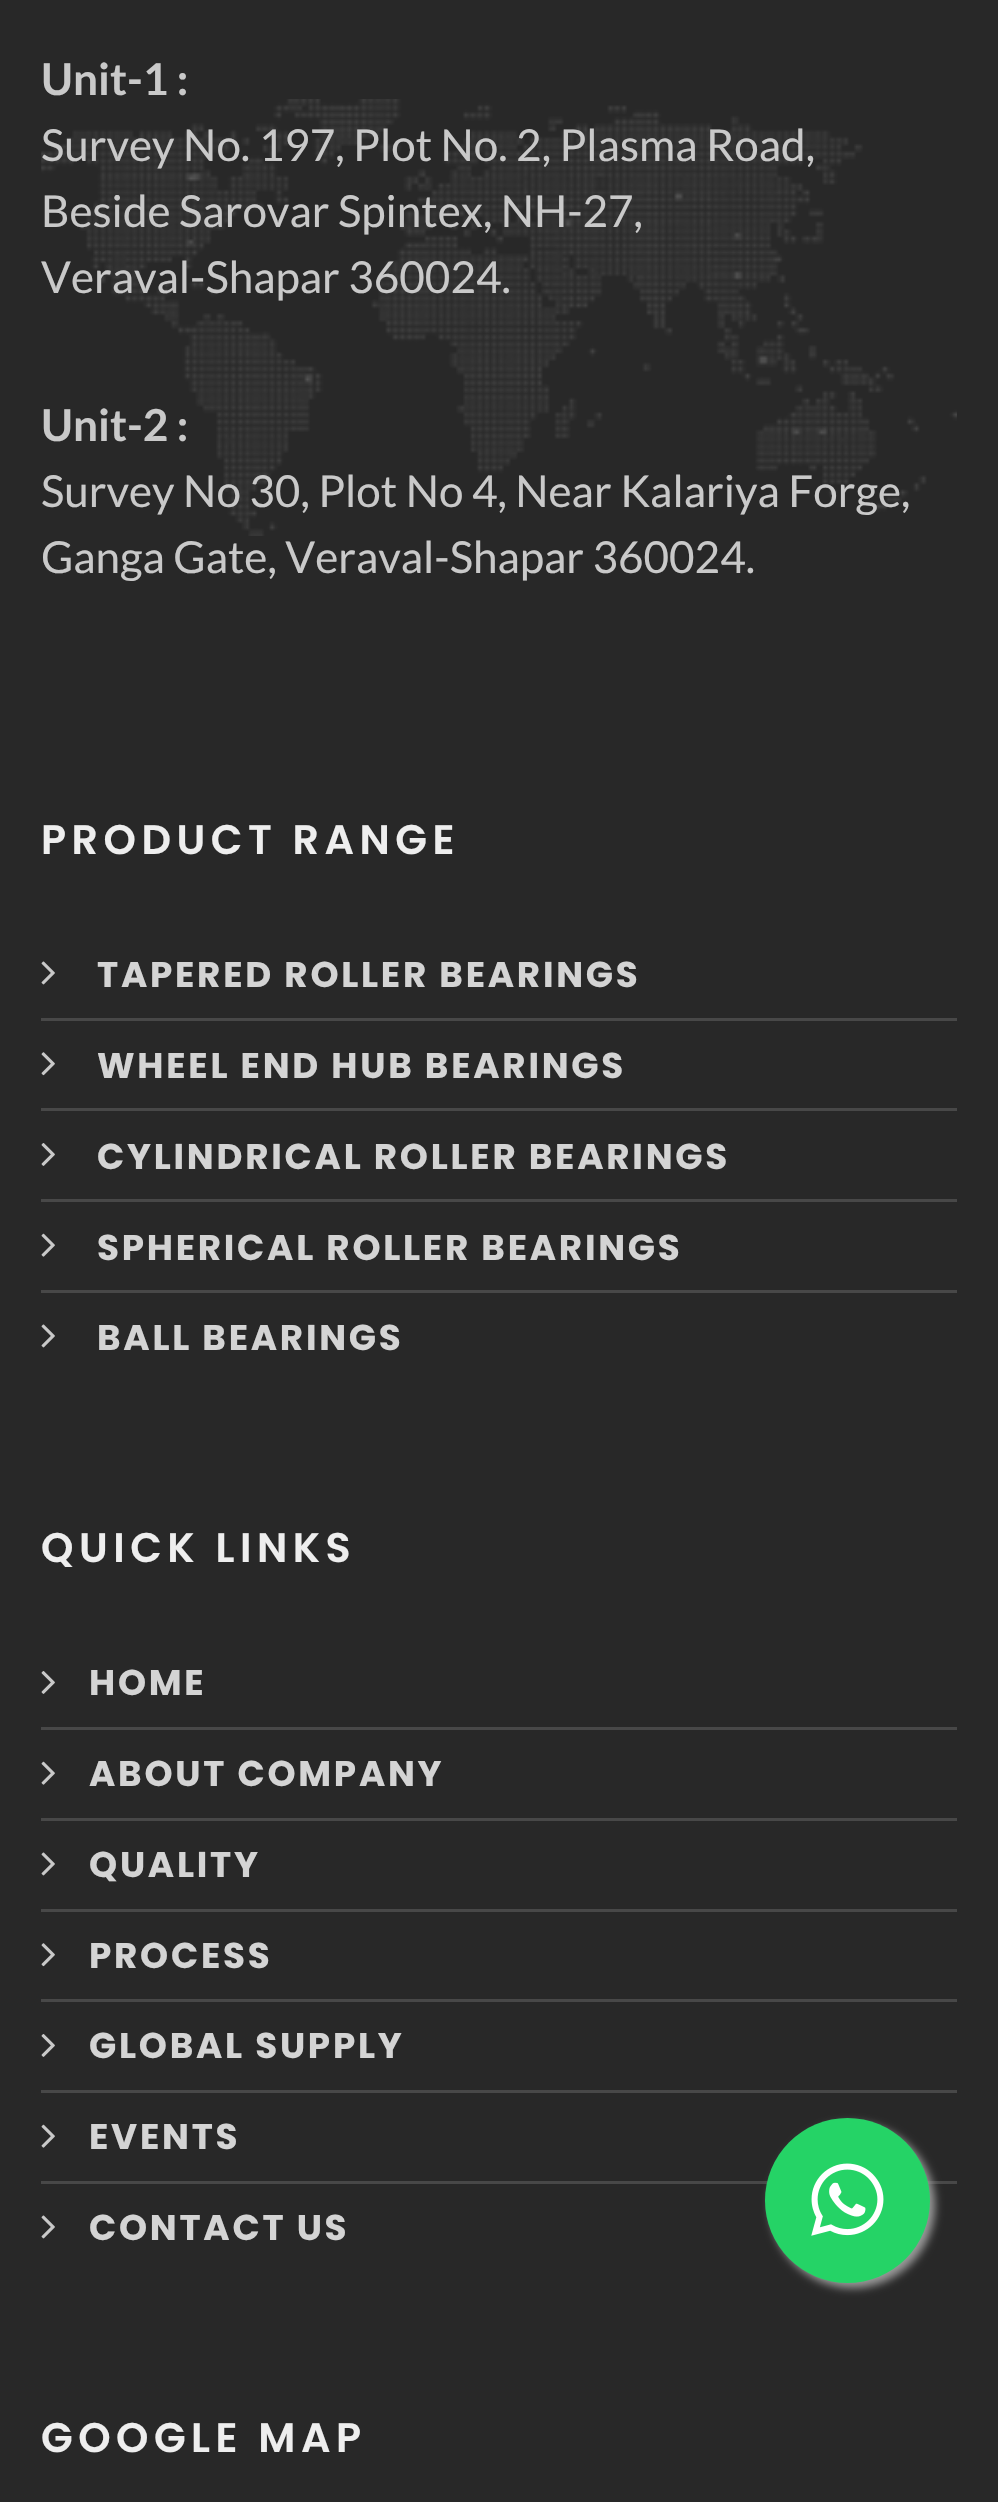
void draw(SkCanvas* canvas) {
	SkPaint paint;
	paint.setAntiAlias(true);
	auto spacedText = [&](const char* s, float x, float y, const SkFont& font, const SkPaint& ink, float letter, float word) {
		std::vector<SkGlyphID> glyphs(font.countText(s, strlen(s), SkTextEncoding::kUTF8));
		std::vector<float> xs(glyphs.size());
		font.textToGlyphs(s, strlen(s), SkTextEncoding::kUTF8, glyphs);
		font.getXPos(glyphs, xs, x);
		float extra = 0;
		for (size_t i = 0; i < glyphs.size(); i++) {
			xs[i] += extra;
			extra += letter + word * (glyphs[i] == font.unicharToGlyph(' '));
		}
		canvas->drawTextBlob(SkTextBlob::MakeFromPosHGlyphs(glyphs, xs, y, font), 0, 0, ink);
	};
	canvas->clear(0xff282828);
	canvas->drawImageRect(SkImages::DeferredFromEncodedData(SkData::MakeFromFileName("img1.png")), SkRect::MakeXYWH(41, 99, 916, 437), SkSamplingOptions());
	SkFont f1(fontMgr->matchFamilyStyle("Lato", SkFontStyle::Bold()), 44);
	f1.setSubpixel(true);
	paint.setColor(0xffc9c9c9);
	canvas->drawString("Unit-1 :", 41, 95, f1, paint);
	SkFont f2(fontMgr->matchFamilyStyle("Lato", SkFontStyle::Normal()), 44);
	f2.setSubpixel(true);
	canvas->drawString("Survey No. 197, Plot No. 2, Plasma Road,", 41, 161, f2, paint);
	canvas->drawString("Beside Sarovar Spintex, NH-27,", 41, 227, f2, paint);
	canvas->drawString("Veraval-Shapar 360024.", 41, 293, f2, paint);
	canvas->drawString("Unit-2 :", 41, 441, f1, paint);
	canvas->drawString("Survey No 30, Plot No 4, Near Kalariya Forge,", 41, 507, f2, paint);
	canvas->drawString("Ganga Gate, Veraval-Shapar 360024.", 41, 573, f2, paint);
	SkFont f3(fontMgr->matchFamilyStyle("Poppins", SkFontStyle(600, SkFontStyle::kNormal_Width, SkFontStyle::kUpright_Slant)), 41.25);
	f3.setSubpixel(true);
	paint.setColor(0xffeeeeee);
	spacedText("PRODUCT RANGE", 41, 854, f3, paint, 5.5, 0);
	canvas->drawImageRect(SkImages::DeferredFromEncodedData(SkData::MakeFromFileName("img2.png")), SkRect::MakeXYWH(41, 961, 14, 24), SkSamplingOptions());
	SkFont f4(fontMgr->matchFamilyStyle("Poppins", SkFontStyle::Bold()), 35.75);
	f4.setSubpixel(true);
	paint.setColor(0xffd4d4d4);
	spacedText("TAPERED ROLLER BEARINGS", 97, 987, f4, paint, 2.75, 0);
	paint.setColor(0xff484848);
	canvas->drawRect(SkRect::MakeXYWH(41, 1018, 916, 3), paint);
	canvas->drawImageRect(SkImages::DeferredFromEncodedData(SkData::MakeFromFileName("img3.png")), SkRect::MakeXYWH(41, 1052, 14, 24), SkSamplingOptions());
	paint.setColor(0xffd4d4d4);
	spacedText("WHEEL END HUB BEARINGS", 97, 1078, f4, paint, 2.75, 0);
	paint.setColor(0xff484848);
	canvas->drawRect(SkRect::MakeXYWH(41, 1108, 916, 3), paint);
	canvas->drawImageRect(SkImages::DeferredFromEncodedData(SkData::MakeFromFileName("img4.png")), SkRect::MakeXYWH(41, 1143, 14, 23), SkSamplingOptions());
	paint.setColor(0xffd4d4d4);
	spacedText("CYLINDRICAL ROLLER BEARINGS", 97, 1169, f4, paint, 2.75, 0);
	paint.setColor(0xff484848);
	canvas->drawRect(SkRect::MakeXYWH(41, 1199, 916, 3), paint);
	canvas->drawImageRect(SkImages::DeferredFromEncodedData(SkData::MakeFromFileName("img5.png")), SkRect::MakeXYWH(41, 1233, 14, 24), SkSamplingOptions());
	paint.setColor(0xffd4d4d4);
	spacedText("SPHERICAL ROLLER BEARINGS", 97, 1260, f4, paint, 2.75, 0);
	paint.setColor(0xff484848);
	canvas->drawRect(SkRect::MakeXYWH(41, 1290, 916, 3), paint);
	canvas->drawImageRect(SkImages::DeferredFromEncodedData(SkData::MakeFromFileName("img2.png")), SkRect::MakeXYWH(41, 1324, 14, 24), SkSamplingOptions());
	paint.setColor(0xffd4d4d4);
	spacedText("BALL BEARINGS", 97, 1350, f4, paint, 2.75, 0);
	paint.setColor(0xffeeeeee);
	spacedText("QUICK LINKS", 41, 1562, f3, paint, 5.5, 0);
	canvas->drawImageRect(SkImages::DeferredFromEncodedData(SkData::MakeFromFileName("img4.png")), SkRect::MakeXYWH(41, 1671, 14, 23), SkSamplingOptions());
	paint.setColor(0xffd4d4d4);
	spacedText("HOME", 89, 1695, f4, paint, 2.75, 0);
	paint.setColor(0xff484848);
	canvas->drawRect(SkRect::MakeXYWH(41, 1727, 916, 3), paint);
	canvas->drawImageRect(SkImages::DeferredFromEncodedData(SkData::MakeFromFileName("img5.png")), SkRect::MakeXYWH(41, 1761, 14, 24), SkSamplingOptions());
	paint.setColor(0xffd4d4d4);
	spacedText("ABOUT COMPANY", 89, 1786, f4, paint, 2.75, 0);
	paint.setColor(0xff484848);
	canvas->drawRect(SkRect::MakeXYWH(41, 1818, 916, 3), paint);
	canvas->drawImageRect(SkImages::DeferredFromEncodedData(SkData::MakeFromFileName("img2.png")), SkRect::MakeXYWH(41, 1852, 14, 24), SkSamplingOptions());
	paint.setColor(0xffd4d4d4);
	spacedText("QUALITY", 89, 1877, f4, paint, 2.75, 0);
	paint.setColor(0xff484848);
	canvas->drawRect(SkRect::MakeXYWH(41, 1909, 916, 3), paint);
	canvas->drawImageRect(SkImages::DeferredFromEncodedData(SkData::MakeFromFileName("img3.png")), SkRect::MakeXYWH(41, 1943, 14, 24), SkSamplingOptions());
	paint.setColor(0xffd4d4d4);
	spacedText("PROCESS", 89, 1968, f4, paint, 2.75, 0);
	paint.setColor(0xff484848);
	canvas->drawRect(SkRect::MakeXYWH(41, 1999, 916, 3), paint);
	canvas->drawImageRect(SkImages::DeferredFromEncodedData(SkData::MakeFromFileName("img4.png")), SkRect::MakeXYWH(41, 2034, 14, 23), SkSamplingOptions());
	paint.setColor(0xffd4d4d4);
	spacedText("GLOBAL SUPPLY", 89, 2058, f4, paint, 2.75, 0);
	paint.setColor(0xff484848);
	canvas->drawRect(SkRect::MakeXYWH(41, 2090, 916, 3), paint);
	canvas->drawImageRect(SkImages::DeferredFromEncodedData(SkData::MakeFromFileName("img5.png")), SkRect::MakeXYWH(41, 2124, 14, 24), SkSamplingOptions());
	paint.setColor(0xffd4d4d4);
	spacedText("EVENTS", 89, 2149, f4, paint, 2.75, 0);
	paint.setColor(0xff484848);
	canvas->drawRect(SkRect::MakeXYWH(41, 2181, 916, 3), paint);
	canvas->drawImageRect(SkImages::DeferredFromEncodedData(SkData::MakeFromFileName("img2.png")), SkRect::MakeXYWH(41, 2215, 14, 24), SkSamplingOptions());
	paint.setColor(0xffd4d4d4);
	spacedText("CONTACT US", 89, 2240, f4, paint, 2.75, 0);
	paint.setColor(0xffeeeeee);
	spacedText("GOOGLE MAP", 41, 2452, f3, paint, 5.5, 0);
	paint.setColor(0xff999999);
	paint.setMaskFilter(SkMaskFilter::MakeBlur(kNormal_SkBlurStyle, 4));
	canvas->drawRoundRect(SkRect::MakeXYWH(770, 2123, 165, 165), 82.5, 82.5, paint);
	paint.setMaskFilter(nullptr);
	paint.setColor(0xff25d366);
	canvas->drawCircle(847.5, 2200.5, 82.5, paint);
	canvas->drawImageRect(SkImages::DeferredFromEncodedData(SkData::MakeFromFileName("img6.png")), SkRect::MakeXYWH(811, 2163, 73, 73), SkSamplingOptions());
}
